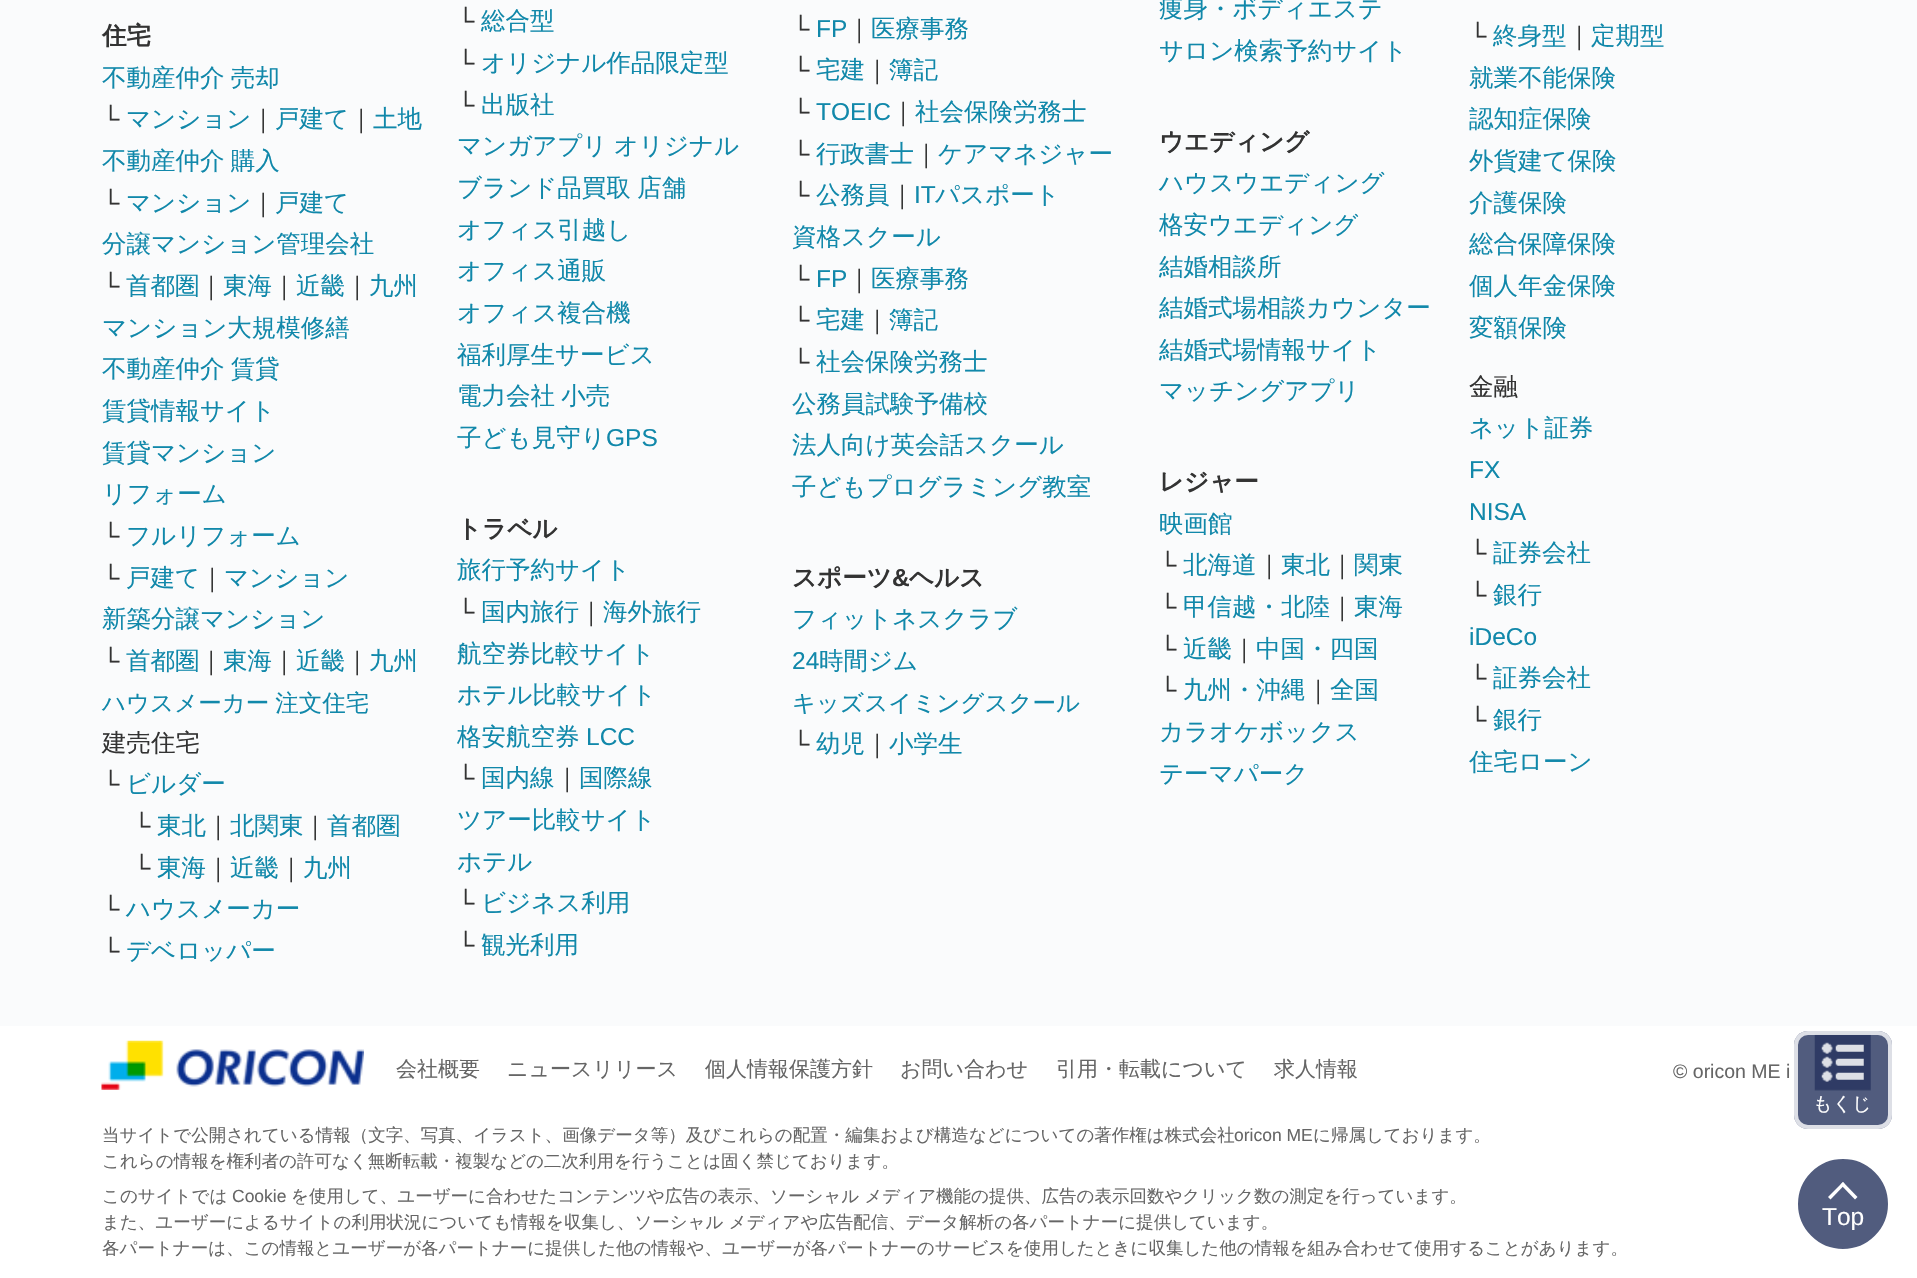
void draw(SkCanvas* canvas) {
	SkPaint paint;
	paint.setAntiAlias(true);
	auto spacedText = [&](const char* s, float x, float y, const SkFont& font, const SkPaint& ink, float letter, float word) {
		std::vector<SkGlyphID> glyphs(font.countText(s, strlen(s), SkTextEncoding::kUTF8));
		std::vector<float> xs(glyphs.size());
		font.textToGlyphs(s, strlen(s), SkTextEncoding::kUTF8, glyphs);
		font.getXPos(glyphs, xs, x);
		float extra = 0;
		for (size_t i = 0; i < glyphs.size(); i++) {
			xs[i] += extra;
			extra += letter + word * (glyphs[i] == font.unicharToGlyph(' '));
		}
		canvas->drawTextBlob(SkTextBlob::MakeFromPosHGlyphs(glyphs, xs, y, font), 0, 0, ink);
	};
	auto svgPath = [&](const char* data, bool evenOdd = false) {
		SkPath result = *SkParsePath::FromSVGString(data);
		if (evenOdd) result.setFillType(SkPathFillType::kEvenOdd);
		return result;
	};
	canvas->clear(0xfffafbfc);
	SkFont f1(fontMgr->matchFamilyStyle("WenQuanYi Zen Hei", SkFontStyle::Bold()), 24.5);
	f1.setSubpixel(true);
	paint.setColor(0xff333333);
	canvas->drawString("住宅", 102, 44, f1, paint);
	SkFont f2(fontMgr->matchFamilyStyle("WenQuanYi Zen Hei", SkFontStyle(500, SkFontStyle::kNormal_Width, SkFontStyle::kUpright_Slant)), 24.5);
	f2.setSubpixel(true);
	paint.setColor(0xff1188aa);
	spacedText("不動産仲介 売却", 102, 86, f2, paint, 0, -1);
	SkFont f3(fontMgr->matchFamilyStyle("Liberation Sans", SkFontStyle::Normal()), 24.5);
	f3.setSubpixel(true);
	paint.setColor(0xff333333);
	canvas->drawString("└", 102, 127, f3, paint);
	paint.setColor(0xff1188aa);
	canvas->drawString("マンション", 126, 127, f2, paint);
	paint.setColor(0xff333333);
	canvas->drawString("｜", 251, 127, f2, paint);
	paint.setColor(0xff1188aa);
	canvas->drawString("戸建て", 275, 127, f2, paint);
	paint.setColor(0xff333333);
	canvas->drawString("｜", 349, 127, f2, paint);
	paint.setColor(0xff1188aa);
	canvas->drawString("土地", 373, 127, f2, paint);
	spacedText("不動産仲介 購入", 102, 169, f2, paint, 0, -1);
	paint.setColor(0xff333333);
	canvas->drawString("└", 102, 211, f3, paint);
	paint.setColor(0xff1188aa);
	canvas->drawString("マンション", 126, 211, f2, paint);
	paint.setColor(0xff333333);
	canvas->drawString("｜", 251, 211, f2, paint);
	paint.setColor(0xff1188aa);
	canvas->drawString("戸建て", 275, 211, f2, paint);
	canvas->drawString("分譲マンション管理会社", 102, 252, f2, paint);
	paint.setColor(0xff333333);
	canvas->drawString("└", 102, 294, f3, paint);
	paint.setColor(0xff1188aa);
	canvas->drawString("首都圏", 126, 294, f2, paint);
	paint.setColor(0xff333333);
	canvas->drawString("｜", 199, 294, f2, paint);
	paint.setColor(0xff1188aa);
	canvas->drawString("東海", 223, 294, f2, paint);
	paint.setColor(0xff333333);
	canvas->drawString("｜", 272, 294, f2, paint);
	paint.setColor(0xff1188aa);
	canvas->drawString("近畿", 296, 294, f2, paint);
	paint.setColor(0xff333333);
	canvas->drawString("｜", 345, 294, f2, paint);
	paint.setColor(0xff1188aa);
	canvas->drawString("九州", 369, 294, f2, paint);
	canvas->drawString("マンション大規模修繕", 102, 336, f2, paint);
	spacedText("不動産仲介 賃貸", 102, 377, f2, paint, 0, -1);
	canvas->drawString("賃貸情報サイト", 102, 419, f2, paint);
	canvas->drawString("賃貸マンション", 102, 461, f2, paint);
	canvas->drawString("リフォーム", 102, 502, f2, paint);
	paint.setColor(0xff333333);
	canvas->drawString("└", 102, 544, f3, paint);
	paint.setColor(0xff1188aa);
	canvas->drawString("フルリフォーム", 126, 544, f2, paint);
	paint.setColor(0xff333333);
	canvas->drawString("└", 102, 586, f3, paint);
	paint.setColor(0xff1188aa);
	canvas->drawString("戸建て", 126, 586, f2, paint);
	paint.setColor(0xff333333);
	canvas->drawString("｜", 200, 586, f2, paint);
	paint.setColor(0xff1188aa);
	canvas->drawString("マンション", 224, 586, f2, paint);
	canvas->drawString("新築分譲マンション", 102, 627, f2, paint);
	paint.setColor(0xff333333);
	canvas->drawString("└", 102, 669, f3, paint);
	paint.setColor(0xff1188aa);
	canvas->drawString("首都圏", 126, 669, f2, paint);
	paint.setColor(0xff333333);
	canvas->drawString("｜", 199, 669, f2, paint);
	paint.setColor(0xff1188aa);
	canvas->drawString("東海", 223, 669, f2, paint);
	paint.setColor(0xff333333);
	canvas->drawString("｜", 272, 669, f2, paint);
	paint.setColor(0xff1188aa);
	canvas->drawString("近畿", 296, 669, f2, paint);
	paint.setColor(0xff333333);
	canvas->drawString("｜", 345, 669, f2, paint);
	paint.setColor(0xff1188aa);
	canvas->drawString("九州", 369, 669, f2, paint);
	SkFont f4(fontMgr->matchFamilyStyle("WenQuanYi Zen Hei", SkFontStyle(500, SkFontStyle::kNormal_Width, SkFontStyle::kUpright_Slant)), 23.5);
	f4.setSubpixel(true);
	spacedText("ハウスメーカー 注文住宅", 102, 711, f4, paint, 0, -1);
	paint.setColor(0xff333333);
	canvas->drawString("建売住宅", 102, 751, f2, paint);
	canvas->drawString("└", 102, 792, f3, paint);
	paint.setColor(0xff1188aa);
	canvas->drawString("ビルダー", 126, 792, f2, paint);
	paint.setColor(0xff333333);
	canvas->drawString("└", 133, 834, f3, paint);
	paint.setColor(0xff1188aa);
	canvas->drawString("東北", 157, 834, f2, paint);
	paint.setColor(0xff333333);
	canvas->drawString("｜", 206, 834, f2, paint);
	paint.setColor(0xff1188aa);
	canvas->drawString("北関東", 230, 834, f2, paint);
	paint.setColor(0xff333333);
	canvas->drawString("｜", 303, 834, f2, paint);
	paint.setColor(0xff1188aa);
	canvas->drawString("首都圏", 327, 834, f2, paint);
	paint.setColor(0xff333333);
	canvas->drawString("└", 133, 876, f3, paint);
	paint.setColor(0xff1188aa);
	canvas->drawString("東海", 157, 876, f2, paint);
	paint.setColor(0xff333333);
	canvas->drawString("｜", 206, 876, f2, paint);
	paint.setColor(0xff1188aa);
	canvas->drawString("近畿", 230, 876, f2, paint);
	paint.setColor(0xff333333);
	canvas->drawString("｜", 279, 876, f2, paint);
	paint.setColor(0xff1188aa);
	canvas->drawString("九州", 303, 876, f2, paint);
	paint.setColor(0xff333333);
	canvas->drawString("└", 102, 917, f3, paint);
	paint.setColor(0xff1188aa);
	canvas->drawString("ハウスメーカー", 126, 917, f2, paint);
	paint.setColor(0xff333333);
	canvas->drawString("└", 102, 959, f3, paint);
	paint.setColor(0xff1188aa);
	canvas->drawString("デベロッパー", 126, 959, f2, paint);
	paint.setColor(0xff333333);
	canvas->drawString("└", 457, 29, f3, paint);
	paint.setColor(0xff1188aa);
	canvas->drawString("総合型", 481, 29, f2, paint);
	paint.setColor(0xff333333);
	canvas->drawString("└", 457, 71, f3, paint);
	paint.setColor(0xff1188aa);
	canvas->drawString("オリジナル作品限定型", 481, 71, f2, paint);
	paint.setColor(0xff333333);
	canvas->drawString("└", 457, 113, f3, paint);
	paint.setColor(0xff1188aa);
	canvas->drawString("出版社", 481, 113, f2, paint);
	spacedText("マンガアプリ オリジナル", 457, 154, f2, paint, 0, -1);
	spacedText("ブランド品買取 店舗", 457, 196, f2, paint, 0, -1);
	canvas->drawString("オフィス引越し", 457, 238, f2, paint);
	canvas->drawString("オフィス通販", 457, 279, f2, paint);
	canvas->drawString("オフィス複合機", 457, 321, f2, paint);
	canvas->drawString("福利厚生サービス", 457, 363, f2, paint);
	spacedText("電力会社 小売", 457, 404, f2, paint, 0, -1);
	canvas->drawString("子ども見守り", 457, 446, f2, paint);
	canvas->drawString("GPS", 606, 446, f3, paint);
	paint.setColor(0xff333333);
	canvas->drawString("トラベル", 457, 537, f1, paint);
	paint.setColor(0xff1188aa);
	canvas->drawString("旅行予約サイト", 457, 578, f2, paint);
	paint.setColor(0xff333333);
	canvas->drawString("└", 457, 620, f3, paint);
	paint.setColor(0xff1188aa);
	canvas->drawString("国内旅行", 481, 620, f2, paint);
	paint.setColor(0xff333333);
	canvas->drawString("｜", 579, 620, f2, paint);
	paint.setColor(0xff1188aa);
	canvas->drawString("海外旅行", 603, 620, f2, paint);
	canvas->drawString("航空券比較サイト", 457, 662, f2, paint);
	canvas->drawString("ホテル比較サイト", 457, 703, f2, paint);
	canvas->drawString("格安航空券", 457, 745, f2, paint);
	canvas->drawString("LCC", 586, 745, f3, paint);
	paint.setColor(0xff333333);
	canvas->drawString("└", 457, 786, f3, paint);
	paint.setColor(0xff1188aa);
	canvas->drawString("国内線", 481, 786, f2, paint);
	paint.setColor(0xff333333);
	canvas->drawString("｜", 555, 786, f2, paint);
	paint.setColor(0xff1188aa);
	canvas->drawString("国際線", 579, 786, f2, paint);
	canvas->drawString("ツアー比較サイト", 457, 828, f2, paint);
	canvas->drawString("ホテル", 457, 870, f2, paint);
	paint.setColor(0xff333333);
	canvas->drawString("└", 457, 911, f3, paint);
	paint.setColor(0xff1188aa);
	canvas->drawString("ビジネス利用", 481, 911, f2, paint);
	paint.setColor(0xff333333);
	canvas->drawString("└", 457, 953, f3, paint);
	paint.setColor(0xff1188aa);
	canvas->drawString("観光利用", 481, 953, f2, paint);
	paint.setColor(0xff333333);
	canvas->drawString("└", 792, 37, f3, paint);
	paint.setColor(0xff1188aa);
	canvas->drawString("FP", 816, 37, f3, paint);
	paint.setColor(0xff333333);
	canvas->drawString("｜", 847, 37, f2, paint);
	paint.setColor(0xff1188aa);
	canvas->drawString("医療事務", 871, 37, f2, paint);
	paint.setColor(0xff333333);
	canvas->drawString("└", 792, 78, f3, paint);
	paint.setColor(0xff1188aa);
	canvas->drawString("宅建", 816, 78, f2, paint);
	paint.setColor(0xff333333);
	canvas->drawString("｜", 865, 78, f2, paint);
	paint.setColor(0xff1188aa);
	canvas->drawString("簿記", 889, 78, f2, paint);
	paint.setColor(0xff333333);
	canvas->drawString("└", 792, 120, f3, paint);
	paint.setColor(0xff1188aa);
	canvas->drawString("TOEIC", 816, 120, f3, paint);
	paint.setColor(0xff333333);
	canvas->drawString("｜", 891, 120, f2, paint);
	paint.setColor(0xff1188aa);
	canvas->drawString("社会保険労務士", 915, 120, f2, paint);
	paint.setColor(0xff333333);
	canvas->drawString("└", 792, 162, f3, paint);
	paint.setColor(0xff1188aa);
	canvas->drawString("行政書士", 816, 162, f2, paint);
	paint.setColor(0xff333333);
	canvas->drawString("｜", 914, 162, f2, paint);
	paint.setColor(0xff1188aa);
	canvas->drawString("ケアマネジャー", 938, 162, f2, paint);
	paint.setColor(0xff333333);
	canvas->drawString("└", 792, 203, f3, paint);
	paint.setColor(0xff1188aa);
	canvas->drawString("公務員", 816, 203, f2, paint);
	paint.setColor(0xff333333);
	canvas->drawString("｜", 890, 203, f2, paint);
	paint.setColor(0xff1188aa);
	canvas->drawString("IT", 914, 203, f3, paint);
	canvas->drawString("パスポート", 935, 203, f2, paint);
	canvas->drawString("資格スクール", 792, 245, f2, paint);
	paint.setColor(0xff333333);
	canvas->drawString("└", 792, 287, f3, paint);
	paint.setColor(0xff1188aa);
	canvas->drawString("FP", 816, 287, f3, paint);
	paint.setColor(0xff333333);
	canvas->drawString("｜", 847, 287, f2, paint);
	paint.setColor(0xff1188aa);
	canvas->drawString("医療事務", 871, 287, f2, paint);
	paint.setColor(0xff333333);
	canvas->drawString("└", 792, 328, f3, paint);
	paint.setColor(0xff1188aa);
	canvas->drawString("宅建", 816, 328, f2, paint);
	paint.setColor(0xff333333);
	canvas->drawString("｜", 865, 328, f2, paint);
	paint.setColor(0xff1188aa);
	canvas->drawString("簿記", 889, 328, f2, paint);
	paint.setColor(0xff333333);
	canvas->drawString("└", 792, 370, f3, paint);
	paint.setColor(0xff1188aa);
	canvas->drawString("社会保険労務士", 816, 370, f2, paint);
	canvas->drawString("公務員試験予備校", 792, 412, f2, paint);
	canvas->drawString("法人向け英会話スクール", 792, 453, f2, paint);
	canvas->drawString("子どもプログラミング教室", 792, 495, f2, paint);
	paint.setColor(0xff333333);
	canvas->drawString("スポーツ", 792, 586, f1, paint);
	SkFont f5(fontMgr->matchFamilyStyle("Liberation Sans", SkFontStyle::Bold()), 24.5);
	f5.setSubpixel(true);
	canvas->drawString("&", 892, 586, f5, paint);
	canvas->drawString("ヘルス", 909, 586, f1, paint);
	paint.setColor(0xff1188aa);
	canvas->drawString("フィットネスクラブ", 792, 627, f2, paint);
	canvas->drawString("24", 792, 669, f3, paint);
	canvas->drawString("時間ジム", 819, 669, f2, paint);
	canvas->drawString("キッズスイミングスクール", 792, 711, f4, paint);
	paint.setColor(0xff333333);
	canvas->drawString("└", 792, 752, f3, paint);
	paint.setColor(0xff1188aa);
	canvas->drawString("幼児", 816, 752, f2, paint);
	paint.setColor(0xff333333);
	canvas->drawString("｜", 865, 752, f2, paint);
	paint.setColor(0xff1188aa);
	canvas->drawString("小学生", 889, 752, f2, paint);
	canvas->drawString("痩身・ボディエステ", 1159, 17, f2, paint);
	canvas->drawString("サロン検索予約サイト", 1159, 59, f2, paint);
	paint.setColor(0xff333333);
	canvas->drawString("ウエディング", 1159, 150, f1, paint);
	paint.setColor(0xff1188aa);
	canvas->drawString("ハウスウエディング", 1159, 191, f2, paint);
	canvas->drawString("格安ウエディング", 1159, 233, f2, paint);
	canvas->drawString("結婚相談所", 1159, 275, f2, paint);
	canvas->drawString("結婚式場相談カウンター", 1159, 316, f2, paint);
	canvas->drawString("結婚式場情報サイト", 1159, 358, f2, paint);
	canvas->drawString("マッチングアプリ", 1159, 399, f2, paint);
	paint.setColor(0xff333333);
	canvas->drawString("レジャー", 1159, 490, f1, paint);
	paint.setColor(0xff1188aa);
	canvas->drawString("映画館", 1159, 532, f2, paint);
	paint.setColor(0xff333333);
	canvas->drawString("└", 1159, 573, f3, paint);
	paint.setColor(0xff1188aa);
	canvas->drawString("北海道", 1183, 573, f2, paint);
	paint.setColor(0xff333333);
	canvas->drawString("｜", 1257, 573, f2, paint);
	paint.setColor(0xff1188aa);
	canvas->drawString("東北", 1281, 573, f2, paint);
	paint.setColor(0xff333333);
	canvas->drawString("｜", 1330, 573, f2, paint);
	paint.setColor(0xff1188aa);
	canvas->drawString("関東", 1354, 573, f2, paint);
	paint.setColor(0xff333333);
	canvas->drawString("└", 1159, 615, f3, paint);
	paint.setColor(0xff1188aa);
	canvas->drawString("甲信越・北陸", 1183, 615, f2, paint);
	paint.setColor(0xff333333);
	canvas->drawString("｜", 1330, 615, f2, paint);
	paint.setColor(0xff1188aa);
	canvas->drawString("東海", 1354, 615, f2, paint);
	paint.setColor(0xff333333);
	canvas->drawString("└", 1159, 657, f3, paint);
	paint.setColor(0xff1188aa);
	canvas->drawString("近畿", 1183, 657, f2, paint);
	paint.setColor(0xff333333);
	canvas->drawString("｜", 1232, 657, f2, paint);
	paint.setColor(0xff1188aa);
	canvas->drawString("中国・四国", 1256, 657, f2, paint);
	paint.setColor(0xff333333);
	canvas->drawString("└", 1159, 698, f3, paint);
	paint.setColor(0xff1188aa);
	canvas->drawString("九州・沖縄", 1183, 698, f2, paint);
	paint.setColor(0xff333333);
	canvas->drawString("｜", 1306, 698, f2, paint);
	paint.setColor(0xff1188aa);
	canvas->drawString("全国", 1330, 698, f2, paint);
	canvas->drawString("カラオケボックス", 1159, 740, f2, paint);
	canvas->drawString("テーマパーク", 1159, 782, f2, paint);
	paint.setColor(0xff333333);
	canvas->drawString("└", 1469, 44, f3, paint);
	paint.setColor(0xff1188aa);
	canvas->drawString("終身型", 1493, 44, f2, paint);
	paint.setColor(0xff333333);
	canvas->drawString("｜", 1567, 44, f2, paint);
	paint.setColor(0xff1188aa);
	canvas->drawString("定期型", 1591, 44, f2, paint);
	canvas->drawString("就業不能保険", 1469, 86, f2, paint);
	canvas->drawString("認知症保険", 1469, 127, f2, paint);
	canvas->drawString("外貨建て保険", 1469, 169, f2, paint);
	canvas->drawString("介護保険", 1469, 211, f2, paint);
	canvas->drawString("総合保障保険", 1469, 252, f2, paint);
	canvas->drawString("個人年金保険", 1469, 294, f2, paint);
	canvas->drawString("変額保険", 1469, 336, f2, paint);
	paint.setColor(0xff333333);
	canvas->drawString("金融", 1469, 395, f2, paint);
	paint.setColor(0xff1188aa);
	canvas->drawString("ネット証券", 1469, 436, f2, paint);
	canvas->drawString("FX", 1469, 478, f3, paint);
	canvas->drawString("NISA", 1469, 520, f3, paint);
	paint.setColor(0xff333333);
	canvas->drawString("└", 1469, 561, f3, paint);
	paint.setColor(0xff1188aa);
	canvas->drawString("証券会社", 1493, 561, f2, paint);
	paint.setColor(0xff333333);
	canvas->drawString("└", 1469, 603, f3, paint);
	paint.setColor(0xff1188aa);
	canvas->drawString("銀行", 1493, 603, f2, paint);
	canvas->drawString("iDeCo", 1469, 645, f3, paint);
	paint.setColor(0xff333333);
	canvas->drawString("└", 1469, 686, f3, paint);
	paint.setColor(0xff1188aa);
	canvas->drawString("証券会社", 1493, 686, f2, paint);
	paint.setColor(0xff333333);
	canvas->drawString("└", 1469, 728, f3, paint);
	paint.setColor(0xff1188aa);
	canvas->drawString("銀行", 1493, 728, f2, paint);
	canvas->drawString("住宅ローン", 1469, 770, f2, paint);
	paint.setColor(0xffffffff);
	canvas->drawRect(SkRect::MakeXYWH(0, 1026, 1917, 252), paint);
	canvas->drawImageRect(SkImages::DeferredFromEncodedData(SkData::MakeFromFileName("img1.png")), SkRect::MakeXYWH(101, 1040, 263, 50), SkSamplingOptions());
	SkFont f6(fontMgr->matchFamilyStyle("WenQuanYi Zen Hei", SkFontStyle(500, SkFontStyle::kNormal_Width, SkFontStyle::kUpright_Slant)), 21);
	f6.setSubpixel(true);
	paint.setColor(0xff666666);
	canvas->drawString("会社概要", 396, 1076, f6, paint);
	canvas->drawString("ニュースリリース", 507, 1076, f6, paint);
	canvas->drawString("個人情報保護方針", 705, 1076, f6, paint);
	canvas->drawString("お問い合わせ", 900, 1076, f6, paint);
	canvas->drawString("引用・転載について", 1056, 1076, f6, paint);
	canvas->drawString("求人情報", 1274, 1076, f6, paint);
	SkFont f7(fontMgr->matchFamilyStyle("Liberation Sans", SkFontStyle::Normal()), 19.5);
	f7.setSubpixel(true);
	canvas->drawString("© oricon ME i", 1673, 1078, f7, paint);
	SkFont f8(fontMgr->matchFamilyStyle("WenQuanYi Zen Hei", SkFontStyle(500, SkFontStyle::kNormal_Width, SkFontStyle::kUpright_Slant)), 17.5);
	f8.setSubpixel(true);
	canvas->drawString("当サイトで公開されている情報（文字、写真、イラスト、画像データ等）及びこれらの配置・編集および構造などについての著作権は株式会社", 102, 1141, f8, paint);
	SkFont f9(fontMgr->matchFamilyStyle("Liberation Sans", SkFontStyle::Normal()), 17.5);
	f9.setSubpixel(true);
	canvas->drawString("oricon ME", 1234, 1141, f9, paint);
	canvas->drawString("に帰属しております。", 1313, 1141, f8, paint);
	canvas->drawString("これらの情報を権利者の許可なく無断転載・複製などの二次利用を行うことは固く禁じております。", 102, 1167, f8, paint);
	canvas->drawString("このサイトでは", 102, 1202, f8, paint);
	canvas->drawString("Cookie", 232, 1202, f9, paint);
	canvas->drawString("を使用して、ユーザーに合わせたコンテンツや広告の表示、ソーシャル メディア機能の提供、広告の表示回数やクリック数の測定を行っています。", 291, 1202, f8, paint);
	canvas->drawString("また、ユーザーによるサイトの利用状況についても情報を収集し、ソーシャル メディアや広告配信、データ解析の各パートナーに提供しています。", 102, 1228, f8, paint);
	canvas->drawString("各パートナーは、この情報とユーザーが各パートナーに提供した他の情報や、ユーザーが各パートナーのサービスを使用したときに収集した他の情報を組み合わせて使用することがあります。", 102, 1254, f8, paint);
	paint.setColor(0xcc26335e);
	canvas->drawRoundRect(SkRect::MakeXYWH(1794, 1031, 98, 98), 14, 14, paint);
	canvas->drawImageRect(SkImages::DeferredFromEncodedData(SkData::MakeFromFileName("img2.png")), SkRect::MakeXYWH(1814, 1033, 57, 58), SkSamplingOptions());
	paint.setStroke(true);
	paint.setStrokeWidth(4);
	paint.setColor(0xccffffff);
	canvas->drawRoundRect(SkRect::MakeXYWH(1796, 1033, 94, 94), 12, 12, paint);
	SkFont f10(fontMgr->matchFamilyStyle("WenQuanYi Zen Hei", SkFontStyle(500, SkFontStyle::kNormal_Width, SkFontStyle::kUpright_Slant)), 19);
	f10.setSubpixel(true);
	paint.setStroke(false);
	paint.setColor(0xffffffff);
	canvas->drawString("もくじ", 1813, 1110, f10, paint);
	paint.setColor(0xff515c7e);
	canvas->drawCircle(1843, 1204, 47, paint);
	paint.setStroke(true);
	paint.setColor(0xffffffff);
	canvas->drawCircle(1843, 1204, 47, paint);
	paint.setStroke(false);
	canvas->drawPath(svgPath("M1828 1197L1843 1182L1845 1184.5L1830.5 1199.5Z"), paint);
	canvas->drawPath(svgPath("M1840.5 1184.5L1843 1182L1857.5 1197L1855 1199.5Z"), paint);
	canvas->drawString("Top", 1822, 1225, f3, paint);
}
